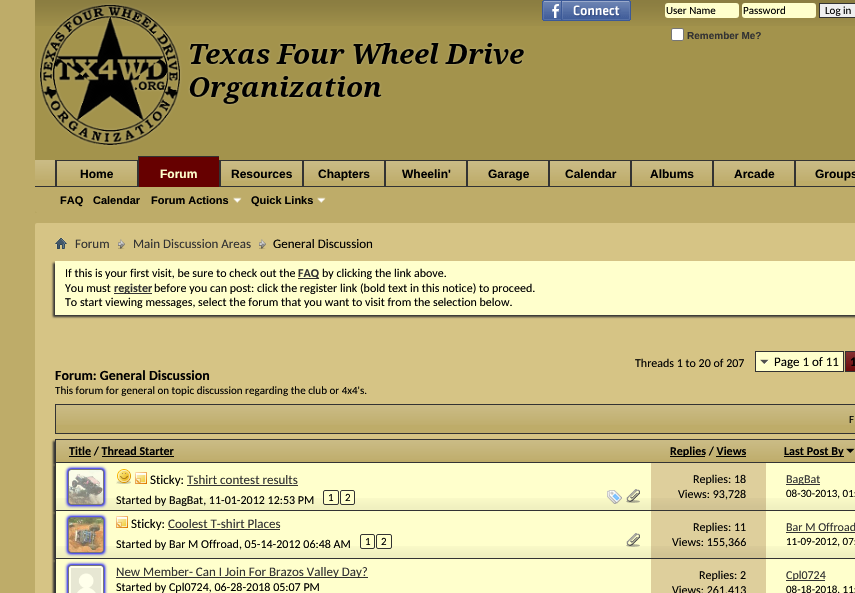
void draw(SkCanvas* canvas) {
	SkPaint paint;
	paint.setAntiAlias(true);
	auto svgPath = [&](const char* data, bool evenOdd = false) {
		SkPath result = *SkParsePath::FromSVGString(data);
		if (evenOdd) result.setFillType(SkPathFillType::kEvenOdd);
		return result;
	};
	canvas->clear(0xffbeac69);
	paint.setColor(0xffa3934c);
	canvas->drawPath(svgPath("M35 0H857V211C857 212 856 213 855 213H37C36 213 35 212 35 211Z"), paint);
	canvas->drawImageRect(SkImages::DeferredFromEncodedData(SkData::MakeFromFileName("img1.png")), SkRect::MakeXYWH(35, 0, 820, 26), SkSamplingOptions());
	canvas->drawImageRect(SkImages::DeferredFromEncodedData(SkData::MakeFromFileName("img2.png")), SkRect::MakeXYWH(38, 3, 487, 144), SkSamplingOptions());
	canvas->drawImageRect(SkImages::DeferredFromEncodedData(SkData::MakeFromFileName("img3.png")), SkRect::MakeXYWH(542, 0, 89, 21), SkSamplingOptions());
	paint.setColor(0xffffffcc);
	canvas->drawRoundRect(SkRect::MakeXYWH(665, 3, 74, 15), 3, 3, paint);
	SkFont f1(fontMgr->matchFamilyStyle("Carlito", SkFontStyle::Normal()), 11);
	f1.setSubpixel(true);
	paint.setColor(0xff000000);
	canvas->drawString("User Name", 666, 14, f1, paint);
	paint.setColor(0xffffffcc);
	canvas->drawRoundRect(SkRect::MakeXYWH(742, 3, 74, 15), 3, 3, paint);
	paint.setColor(0xff000000);
	canvas->drawString("Password", 743, 14, f1, paint);
	paint.setColor(0xffefefef);
	canvas->drawRect(SkRect::MakeXYWH(819.5, 3.5, 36, 14), paint);
	paint.setStroke(true);
	paint.setStrokeWidth(1);
	paint.setColor(0xff333333);
	canvas->drawRect(SkRect::MakeXYWH(819.5, 3.5, 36, 14), paint);
	paint.setStroke(false);
	paint.setColor(0xff000000);
	canvas->drawString("Log in", 825, 14, f1, paint);
	paint.setColor(0xffffffff);
	canvas->drawRoundRect(SkRect::MakeXYWH(671.5, 28.5, 12, 12), 1.5, 1.5, paint);
	paint.setStroke(true);
	paint.setColor(0xff767676);
	canvas->drawRoundRect(SkRect::MakeXYWH(671.5, 28.5, 12, 12), 1.5, 1.5, paint);
	SkFont f2(fontMgr->matchFamilyStyle("Liberation Sans", SkFontStyle::Bold()), 10);
	f2.setSubpixel(true);
	paint.setStroke(false);
	paint.setColor(0xff333333);
	canvas->drawString("Remember Me?", 687, 39, f2, paint);
	paint.setColor(0xffbeac69);
	canvas->drawPath(svgPath("M35 160H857V211C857 212 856 213 855 213H37C36 213 35 212 35 211Z"), paint);
	canvas->drawImageRect(SkImages::DeferredFromEncodedData(SkData::MakeFromFileName("img4.png")), SkRect::MakeXYWH(35, 160, 20, 20), SkSamplingOptions());
	paint.setColor(0xff333333);
	canvas->drawRect(SkRect::MakeXYWH(137, 160, 1, 27), paint);
	canvas->drawRect(SkRect::MakeXYWH(55, 160, 1, 27), paint);
	canvas->drawImageRect(SkImages::DeferredFromEncodedData(SkData::MakeFromFileName("img5.png")), SkRect::MakeXYWH(57, 161, 80, 20), SkSamplingOptions());
	canvas->drawRect(SkRect::MakeXYWH(56, 160, 81, 1), paint);
	canvas->drawRect(SkRect::MakeXYWH(56, 160, 1, 27), paint);
	SkFont f3(fontMgr->matchFamilyStyle("Liberation Sans", SkFontStyle::Bold()), 12);
	f3.setSubpixel(true);
	paint.setColor(0xff000000);
	canvas->drawString("Home", 80, 178, f3, paint);
	paint.setColor(0xff333333);
	canvas->drawRect(SkRect::MakeXYWH(219, 160, 1, 26), paint);
	canvas->drawRect(SkRect::MakeXYWH(302, 160, 1, 27), paint);
	canvas->drawRect(SkRect::MakeXYWH(220, 160, 82, 1), paint);
	canvas->drawRect(SkRect::MakeXYWH(220, 160, 1, 27), paint);
	canvas->drawRect(SkRect::MakeXYWH(384, 160, 1, 27), paint);
	canvas->drawRect(SkRect::MakeXYWH(303, 160, 81, 1), paint);
	canvas->drawRect(SkRect::MakeXYWH(303, 160, 1, 27), paint);
	canvas->drawRect(SkRect::MakeXYWH(466, 160, 1, 27), paint);
	canvas->drawRect(SkRect::MakeXYWH(385, 160, 81, 1), paint);
	canvas->drawRect(SkRect::MakeXYWH(385, 160, 1, 27), paint);
	canvas->drawRect(SkRect::MakeXYWH(548, 160, 1, 27), paint);
	canvas->drawRect(SkRect::MakeXYWH(467, 160, 81, 1), paint);
	canvas->drawRect(SkRect::MakeXYWH(467, 160, 1, 27), paint);
	canvas->drawRect(SkRect::MakeXYWH(630, 160, 1, 27), paint);
	canvas->drawRect(SkRect::MakeXYWH(549, 160, 81, 1), paint);
	canvas->drawRect(SkRect::MakeXYWH(549, 160, 1, 27), paint);
	canvas->drawRect(SkRect::MakeXYWH(712, 160, 1, 27), paint);
	canvas->drawRect(SkRect::MakeXYWH(631, 160, 81, 1), paint);
	canvas->drawRect(SkRect::MakeXYWH(631, 160, 1, 27), paint);
	canvas->drawRect(SkRect::MakeXYWH(794, 160, 1, 27), paint);
	canvas->drawRect(SkRect::MakeXYWH(713, 160, 81, 1), paint);
	canvas->drawRect(SkRect::MakeXYWH(713, 160, 1, 27), paint);
	canvas->drawRect(SkRect::MakeXYWH(795, 160, 60, 1), paint);
	canvas->drawRect(SkRect::MakeXYWH(795, 160, 1, 27), paint);
	canvas->drawRect(SkRect::MakeXYWH(35, 186, 820, 1), paint);
	paint.setColor(0xff660000);
	canvas->drawRect(SkRect::MakeXYWH(139, 157, 80, 30), paint);
	paint.setColor(0xff333333);
	canvas->drawRect(SkRect::MakeXYWH(138, 156, 81, 1), paint);
	canvas->drawRect(SkRect::MakeXYWH(138, 156, 1, 31), paint);
	paint.setColor(0xffffffcc);
	canvas->drawString("Forum", 160, 178, f3, paint);
	canvas->drawImageRect(SkImages::DeferredFromEncodedData(SkData::MakeFromFileName("img6.png")), SkRect::MakeXYWH(221, 161, 81, 20), SkSamplingOptions());
	paint.setColor(0xff000000);
	canvas->drawString("Resources", 231, 178, f3, paint);
	canvas->drawImageRect(SkImages::DeferredFromEncodedData(SkData::MakeFromFileName("img5.png")), SkRect::MakeXYWH(304, 161, 80, 20), SkSamplingOptions());
	canvas->drawString("Chapters", 318, 178, f3, paint);
	canvas->drawImageRect(SkImages::DeferredFromEncodedData(SkData::MakeFromFileName("img5.png")), SkRect::MakeXYWH(386, 161, 80, 20), SkSamplingOptions());
	canvas->drawString("Wheelin'", 402, 178, f3, paint);
	canvas->drawImageRect(SkImages::DeferredFromEncodedData(SkData::MakeFromFileName("img5.png")), SkRect::MakeXYWH(468, 161, 80, 20), SkSamplingOptions());
	canvas->drawString("Garage", 488, 178, f3, paint);
	canvas->drawImageRect(SkImages::DeferredFromEncodedData(SkData::MakeFromFileName("img5.png")), SkRect::MakeXYWH(550, 161, 80, 20), SkSamplingOptions());
	canvas->drawString("Calendar", 565, 178, f3, paint);
	canvas->drawImageRect(SkImages::DeferredFromEncodedData(SkData::MakeFromFileName("img5.png")), SkRect::MakeXYWH(632, 161, 80, 20), SkSamplingOptions());
	canvas->drawString("Albums", 650, 178, f3, paint);
	canvas->drawImageRect(SkImages::DeferredFromEncodedData(SkData::MakeFromFileName("img5.png")), SkRect::MakeXYWH(714, 161, 80, 20), SkSamplingOptions());
	canvas->drawString("Arcade", 734, 178, f3, paint);
	canvas->drawImageRect(SkImages::DeferredFromEncodedData(SkData::MakeFromFileName("img7.png")), SkRect::MakeXYWH(796, 161, 59, 20), SkSamplingOptions());
	canvas->drawString("Groups", 815, 178, f3, paint);
	SkFont f4(fontMgr->matchFamilyStyle("Liberation Sans", SkFontStyle::Bold()), 11);
	f4.setSubpixel(true);
	canvas->drawString("FAQ", 60, 204, f4, paint);
	canvas->drawString("Calendar", 93, 204, f4, paint);
	canvas->drawString("Forum Actions", 151, 204, f4, paint);
	canvas->drawImageRect(SkImages::DeferredFromEncodedData(SkData::MakeFromFileName("img8.png")), SkRect::MakeXYWH(233, 197, 9, 6), SkSamplingOptions());
	canvas->drawString("Quick Links", 251, 204, f4, paint);
	canvas->drawImageRect(SkImages::DeferredFromEncodedData(SkData::MakeFromFileName("img8.png")), SkRect::MakeXYWH(317, 197, 9, 6), SkSamplingOptions());
	paint.setColor(0xffd6c485);
	canvas->drawRoundRect(SkRect::MakeXYWH(35, 223, 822, 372), 2, 2, paint);
	canvas->drawImageRect(SkImages::DeferredFromEncodedData(SkData::MakeFromFileName("img9.png")), SkRect::MakeXYWH(55, 237, 12, 12), SkSamplingOptions());
	canvas->drawImageRect(SkImages::DeferredFromEncodedData(SkData::MakeFromFileName("img10.png")), SkRect::MakeXYWH(118, 239, 7, 10), SkSamplingOptions());
	SkFont f5(fontMgr->matchFamilyStyle("Carlito", SkFontStyle::Normal()), 13);
	f5.setSubpixel(true);
	paint.setColor(0xff333333);
	canvas->drawString("Forum", 75, 248, f5, paint);
	canvas->drawImageRect(SkImages::DeferredFromEncodedData(SkData::MakeFromFileName("img10.png")), SkRect::MakeXYWH(259, 239, 7, 10), SkSamplingOptions());
	canvas->drawString("Main Discussion Areas", 133, 248, f5, paint);
	paint.setColor(0xff000000);
	canvas->drawString("General Discussion", 273, 248, f5, paint);
	paint.setColor(0xff333333);
	paint.setMaskFilter(SkMaskFilter::MakeBlur(kNormal_SkBlurStyle, 1));
	canvas->drawRect(SkRect::MakeXYWH(53, 263, 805, 54), paint);
	paint.setMaskFilter(nullptr);
	paint.setColor(0xffffffcc);
	canvas->drawRect(SkRect::MakeXYWH(55, 261, 800, 54), paint);
	SkFont f6(fontMgr->matchFamilyStyle("Carlito", SkFontStyle::Normal()), 12);
	f6.setSubpixel(true);
	paint.setColor(0xff000000);
	canvas->drawString("If this is your first visit, be sure to check out the", 65, 277, f6, paint);
	paint.setColor(0xff333333);
	canvas->drawRect(SkRect::MakeXYWH(298, 278, 21, 1), paint);
	SkFont f7(fontMgr->matchFamilyStyle("Carlito", SkFontStyle::Bold()), 12);
	f7.setSubpixel(true);
	canvas->drawString("FAQ", 298, 277, f7, paint);
	paint.setColor(0xff000000);
	canvas->drawString("by clicking the link above.", 322, 277, f6, paint);
	canvas->drawString("You must", 65, 292, f6, paint);
	paint.setColor(0xff333333);
	canvas->drawRect(SkRect::MakeXYWH(114, 293, 38, 1), paint);
	canvas->drawString("register", 114, 292, f7, paint);
	paint.setColor(0xff000000);
	canvas->drawString("before you can post: click the register link (bold text in this notice) to proceed.", 154, 292, f6, paint);
	canvas->drawString("To start viewing messages, select the forum that you want to visit from the selection below.", 65, 306, f6, paint);
	canvas->drawString("Threads 1 to 20 of 207", 635, 367, f6, paint);
	paint.setColor(0xffffffcc);
	canvas->drawRect(SkRect::MakeXYWH(756, 352, 87, 19), paint);
	canvas->drawImageRect(SkImages::DeferredFromEncodedData(SkData::MakeFromFileName("img11.png")), SkRect::MakeXYWH(760, 359, 9, 6), SkSamplingOptions());
	paint.setStroke(true);
	paint.setColor(0xff333333);
	canvas->drawRect(SkRect::MakeXYWH(755.5, 351.5, 88, 20), paint);
	paint.setStroke(false);
	paint.setColor(0xff000000);
	canvas->drawString("Page 1 of 11", 774, 366, f5, paint);
	paint.setColor(0xff660000);
	canvas->drawRect(SkRect::MakeXYWH(846, 352, 9, 19), paint);
	canvas->drawImageRect(SkImages::DeferredFromEncodedData(SkData::MakeFromFileName("img12.png")), SkRect::MakeXYWH(846, 352, 9, 19), SkSamplingOptions());
	paint.setStroke(true);
	paint.setColor(0xff333333);
	canvas->drawRect(SkRect::MakeXYWH(845.5, 351.5, 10, 20), paint);
	SkFont f8(fontMgr->matchFamilyStyle("Carlito", SkFontStyle::Bold()), 13);
	f8.setSubpixel(true);
	paint.setStroke(false);
	paint.setColor(0xff000000);
	canvas->drawString("1", 850, 366, f8, paint);
	SkFont f9(fontMgr->matchFamilyStyle("Carlito", SkFontStyle::Bold()), 14);
	f9.setSubpixel(true);
	canvas->drawString("Forum: General Discussion", 55, 380, f9, paint);
	SkFont f10(fontMgr->matchFamilyStyle("Carlito", SkFontStyle::Normal()), 11.05);
	f10.setSubpixel(true);
	canvas->drawString("This forum for general on topic discussion regarding the club or 4x4's.", 55, 394, f10, paint);
	paint.setColor(0xffbeac69);
	canvas->drawRect(SkRect::MakeXYWH(56, 405, 799, 28), paint);
	canvas->drawImageRect(SkImages::DeferredFromEncodedData(SkData::MakeFromFileName("img13.png")), SkRect::MakeXYWH(56, 405, 799, 20), SkSamplingOptions());
	paint.setStroke(true);
	paint.setColor(0xff333333);
	canvas->drawRect(SkRect::MakeXYWH(55.5, 404.5, 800, 29), paint);
	paint.setStroke(false);
	paint.setColor(0xff000000);
	canvas->drawString("F", 849, 423, f1, paint);
	paint.setColor(0xff333333);
	paint.setMaskFilter(SkMaskFilter::MakeBlur(kNormal_SkBlurStyle, 1));
	canvas->drawRect(SkRect::MakeXYWH(53, 441, 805, 24), paint);
	paint.setMaskFilter(nullptr);
	paint.setColor(0xffbeac69);
	canvas->drawRect(SkRect::MakeXYWH(56, 440, 799, 22), paint);
	canvas->drawImageRect(SkImages::DeferredFromEncodedData(SkData::MakeFromFileName("img13.png")), SkRect::MakeXYWH(56, 440, 799, 20), SkSamplingOptions());
	paint.setStroke(true);
	paint.setColor(0xff333333);
	canvas->drawRect(SkRect::MakeXYWH(55.5, 439.5, 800, 23), paint);
	paint.setStroke(false);
	paint.setColor(0xff000000);
	canvas->drawString("Title / Thread Starter", 69, 455, f7, paint);
	canvas->drawRect(SkRect::MakeXYWH(69, 456, 22, 1), paint);
	canvas->drawRect(SkRect::MakeXYWH(102, 456, 72, 1), paint);
	canvas->drawRect(SkRect::MakeXYWH(670, 456, 35, 1), paint);
	canvas->drawString("Replies / Views", 670, 455, f7, paint);
	canvas->drawRect(SkRect::MakeXYWH(716, 456, 30, 1), paint);
	canvas->drawRect(SkRect::MakeXYWH(784, 456, 60, 1), paint);
	canvas->drawString("Last Post By", 784, 455, f7, paint);
	canvas->drawImageRect(SkImages::DeferredFromEncodedData(SkData::MakeFromFileName("img14.png")), SkRect::MakeXYWH(846, 448, 9, 5), SkSamplingOptions());
	paint.setColor(0xff333333);
	paint.setMaskFilter(SkMaskFilter::MakeBlur(kNormal_SkBlurStyle, 1));
	canvas->drawRect(SkRect::MakeXYWH(53, 465, 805, 48), paint);
	paint.setMaskFilter(nullptr);
	paint.setColor(0xffffffcc);
	canvas->drawRect(SkRect::MakeXYWH(56, 463, 799, 47), paint);
	canvas->drawImageRect(SkImages::DeferredFromEncodedData(SkData::MakeFromFileName("img15.png")), SkRect::MakeXYWH(56, 498, 799, 12), SkSamplingOptions());
	paint.setColor(0xff333333);
	canvas->drawRect(SkRect::MakeXYWH(55, 463, 1, 4), paint);
	canvas->save();
	canvas->clipPath(svgPath("M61 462H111V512H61ZM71 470H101C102 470 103 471 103 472V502C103 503 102 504 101 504H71C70 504 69 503 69 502V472C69 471 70 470 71 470Z", true), true);
	paint.setColor(0xff0000ff);
	paint.setMaskFilter(SkMaskFilter::MakeBlur(kNormal_SkBlurStyle, 1.5));
	canvas->drawRoundRect(SkRect::MakeXYWH(67, 468, 38, 38), 4, 4, paint);
	paint.setMaskFilter(nullptr);
	canvas->restore();
	paint.setStroke(true);
	paint.setColor(0xff777777);
	canvas->drawRoundRect(SkRect::MakeXYWH(68.5, 469.5, 35, 35), 2.5, 2.5, paint);
	canvas->drawImageRect(SkImages::DeferredFromEncodedData(SkData::MakeFromFileName("img16.png")), SkRect::MakeXYWH(69, 470, 34, 34), SkSamplingOptions());
	canvas->drawImageRect(SkImages::DeferredFromEncodedData(SkData::MakeFromFileName("img17.png")), SkRect::MakeXYWH(116, 469, 15, 15), SkSamplingOptions());
	canvas->drawImageRect(SkImages::DeferredFromEncodedData(SkData::MakeFromFileName("img18.png")), SkRect::MakeXYWH(135, 472, 12, 12), SkSamplingOptions());
	paint.setStroke(false);
	paint.setColor(0xff000000);
	canvas->drawString("Sticky:", 150, 484, f5, paint);
	paint.setColor(0xff333333);
	canvas->drawString("Tshirt contest results", 187, 484, f5, paint);
	canvas->drawRect(SkRect::MakeXYWH(187, 485, 111, 1), paint);
	paint.setColor(0xff000000);
	canvas->drawString("Started by BagBat, 11-01-2012 12:53 PM", 116, 504, f6, paint);
	paint.setColor(0xffffffcc);
	canvas->drawRoundRect(SkRect::MakeXYWH(323.5, 490.5, 15, 14), 1.5, 1.5, paint);
	paint.setStroke(true);
	paint.setColor(0xff333333);
	canvas->drawRoundRect(SkRect::MakeXYWH(323.5, 490.5, 15, 14), 1.5, 1.5, paint);
	paint.setStroke(false);
	paint.setColor(0xff000000);
	canvas->drawString("1", 328, 501, f1, paint);
	paint.setColor(0xffffffcc);
	canvas->drawRoundRect(SkRect::MakeXYWH(340.5, 490.5, 14, 14), 1.5, 1.5, paint);
	paint.setStroke(true);
	paint.setColor(0xff333333);
	canvas->drawRoundRect(SkRect::MakeXYWH(340.5, 490.5, 14, 14), 1.5, 1.5, paint);
	paint.setStroke(false);
	paint.setColor(0xff000000);
	canvas->drawString("2", 345, 501, f1, paint);
	canvas->drawImageRect(SkImages::DeferredFromEncodedData(SkData::MakeFromFileName("img19.png")), SkRect::MakeXYWH(607, 490, 15, 14), SkSamplingOptions());
	canvas->drawImageRect(SkImages::DeferredFromEncodedData(SkData::MakeFromFileName("img20.png")), SkRect::MakeXYWH(626, 489, 14, 14), SkSamplingOptions());
	paint.setColor(0xffdecf9c);
	canvas->drawRect(SkRect::MakeXYWH(651, 463, 115, 47), paint);
	canvas->drawImageRect(SkImages::DeferredFromEncodedData(SkData::MakeFromFileName("img21.png")), SkRect::MakeXYWH(651, 498, 115, 12), SkSamplingOptions());
	paint.setColor(0xff000000);
	canvas->drawString("Replies: 18", 693, 483, f6, paint);
	canvas->drawString("Views: 93,728", 678, 498, f6, paint);
	paint.setColor(0xff333333);
	canvas->drawRect(SkRect::MakeXYWH(786, 484, 34, 1), paint);
	canvas->drawString("BagBat", 786, 483, f6, paint);
	paint.setColor(0xff000000);
	canvas->drawString("08-30-2013, 01:", 786, 497, f1, paint);
	paint.setColor(0xff333333);
	paint.setMaskFilter(SkMaskFilter::MakeBlur(kNormal_SkBlurStyle, 1));
	canvas->drawRect(SkRect::MakeXYWH(53, 513, 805, 48), paint);
	paint.setMaskFilter(nullptr);
	paint.setColor(0xffffffcc);
	canvas->drawRect(SkRect::MakeXYWH(56, 511, 799, 47), paint);
	canvas->drawImageRect(SkImages::DeferredFromEncodedData(SkData::MakeFromFileName("img15.png")), SkRect::MakeXYWH(56, 546, 799, 12), SkSamplingOptions());
	paint.setColor(0xff333333);
	canvas->drawRect(SkRect::MakeXYWH(55, 511, 1, 4), paint);
	canvas->save();
	canvas->clipPath(svgPath("M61 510H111V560H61ZM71 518H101C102 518 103 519 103 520V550C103 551 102 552 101 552H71C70 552 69 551 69 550V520C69 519 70 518 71 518Z", true), true);
	paint.setColor(0xff0000ff);
	paint.setMaskFilter(SkMaskFilter::MakeBlur(kNormal_SkBlurStyle, 1.5));
	canvas->drawRoundRect(SkRect::MakeXYWH(67, 516, 38, 38), 4, 4, paint);
	paint.setMaskFilter(nullptr);
	canvas->restore();
	paint.setStroke(true);
	paint.setColor(0xff777777);
	canvas->drawRoundRect(SkRect::MakeXYWH(68.5, 517.5, 35, 35), 2.5, 2.5, paint);
	canvas->drawImageRect(SkImages::DeferredFromEncodedData(SkData::MakeFromFileName("img22.png")), SkRect::MakeXYWH(69, 518, 34, 34), SkSamplingOptions());
	canvas->drawImageRect(SkImages::DeferredFromEncodedData(SkData::MakeFromFileName("img18.png")), SkRect::MakeXYWH(116, 516, 12, 12), SkSamplingOptions());
	paint.setStroke(false);
	paint.setColor(0xff000000);
	canvas->drawString("Sticky:", 131, 528, f5, paint);
	paint.setColor(0xff333333);
	canvas->drawString("Coolest T-shirt Places", 168, 528, f5, paint);
	canvas->drawRect(SkRect::MakeXYWH(168, 529, 112, 1), paint);
	paint.setColor(0xff000000);
	canvas->drawString("Started by Bar M Offroad, 05-14-2012 06:48 AM", 116, 548, f6, paint);
	paint.setColor(0xffffffcc);
	canvas->drawRoundRect(SkRect::MakeXYWH(360.5, 534.5, 14, 14), 1.5, 1.5, paint);
	paint.setStroke(true);
	paint.setColor(0xff333333);
	canvas->drawRoundRect(SkRect::MakeXYWH(360.5, 534.5, 14, 14), 1.5, 1.5, paint);
	paint.setStroke(false);
	paint.setColor(0xff000000);
	canvas->drawString("1", 365, 545, f1, paint);
	paint.setColor(0xffffffcc);
	canvas->drawRoundRect(SkRect::MakeXYWH(376.5, 534.5, 15, 14), 1.5, 1.5, paint);
	paint.setStroke(true);
	paint.setColor(0xff333333);
	canvas->drawRoundRect(SkRect::MakeXYWH(376.5, 534.5, 15, 14), 1.5, 1.5, paint);
	paint.setStroke(false);
	paint.setColor(0xff000000);
	canvas->drawString("2", 381, 545, f1, paint);
	canvas->drawImageRect(SkImages::DeferredFromEncodedData(SkData::MakeFromFileName("img23.png")), SkRect::MakeXYWH(626, 533, 14, 14), SkSamplingOptions());
	paint.setColor(0xffdecf9c);
	canvas->drawRect(SkRect::MakeXYWH(651, 511, 115, 47), paint);
	canvas->drawImageRect(SkImages::DeferredFromEncodedData(SkData::MakeFromFileName("img21.png")), SkRect::MakeXYWH(651, 546, 115, 12), SkSamplingOptions());
	paint.setColor(0xff000000);
	canvas->drawString("Replies: 11", 693, 531, f6, paint);
	canvas->drawString("Views: 155,366", 672, 546, f6, paint);
	paint.setColor(0xff333333);
	canvas->drawString("Bar M Offroad", 786, 531, f6, paint);
	canvas->drawRect(SkRect::MakeXYWH(786, 532, 69, 1), paint);
	paint.setColor(0xff000000);
	canvas->drawString("11-09-2012, 07:", 786, 545, f1, paint);
	paint.setColor(0xff333333);
	paint.setMaskFilter(SkMaskFilter::MakeBlur(kNormal_SkBlurStyle, 1));
	canvas->drawRect(SkRect::MakeXYWH(53, 561, 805, 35), paint);
	paint.setMaskFilter(nullptr);
	paint.setColor(0xffffffcc);
	canvas->drawRect(SkRect::MakeXYWH(56, 559, 799, 34), paint);
	paint.setColor(0xff333333);
	canvas->drawRect(SkRect::MakeXYWH(55, 559, 1, 4), paint);
	canvas->save();
	canvas->clipPath(svgPath("M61 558H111V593H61ZM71 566H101C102 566 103 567 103 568V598C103 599 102 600 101 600H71C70 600 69 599 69 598V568C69 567 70 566 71 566Z", true), true);
	paint.setColor(0xff0000ff);
	paint.setMaskFilter(SkMaskFilter::MakeBlur(kNormal_SkBlurStyle, 1.5));
	canvas->drawRoundRect(SkRect::MakeXYWH(67, 564, 38, 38), 4, 4, paint);
	paint.setMaskFilter(nullptr);
	canvas->restore();
	paint.setStroke(true);
	paint.setColor(0xff777777);
	canvas->drawRoundRect(SkRect::MakeXYWH(68.5, 565.5, 35, 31), 2.5, 2.5, paint);
	canvas->drawImageRect(SkImages::DeferredFromEncodedData(SkData::MakeFromFileName("img24.png")), SkRect::MakeXYWH(69, 566, 34, 27), SkSamplingOptions());
	paint.setStroke(false);
	paint.setColor(0xff333333);
	canvas->drawRect(SkRect::MakeXYWH(116, 577, 252, 1), paint);
	canvas->drawString("New Member- Can I Join For Brazos Valley Day?", 116, 576, f5, paint);
	paint.setColor(0xff000000);
	canvas->drawString("Started by Cpl0724, 06-28-2018 05:07 PM", 116, 591, f6, paint);
	paint.setColor(0xffdecf9c);
	canvas->drawRect(SkRect::MakeXYWH(651, 559, 115, 34), paint);
	paint.setColor(0xff000000);
	canvas->drawString("Replies: 2", 699, 579, f6, paint);
	canvas->drawString("Views: 261,413", 672, 594, f6, paint);
	paint.setColor(0xff333333);
	canvas->drawRect(SkRect::MakeXYWH(786, 580, 39, 1), paint);
	canvas->drawString("Cpl0724", 786, 579, f6, paint);
	paint.setColor(0xff000000);
	canvas->drawString("08-18-2018, 11:", 786, 593, f1, paint);
}
